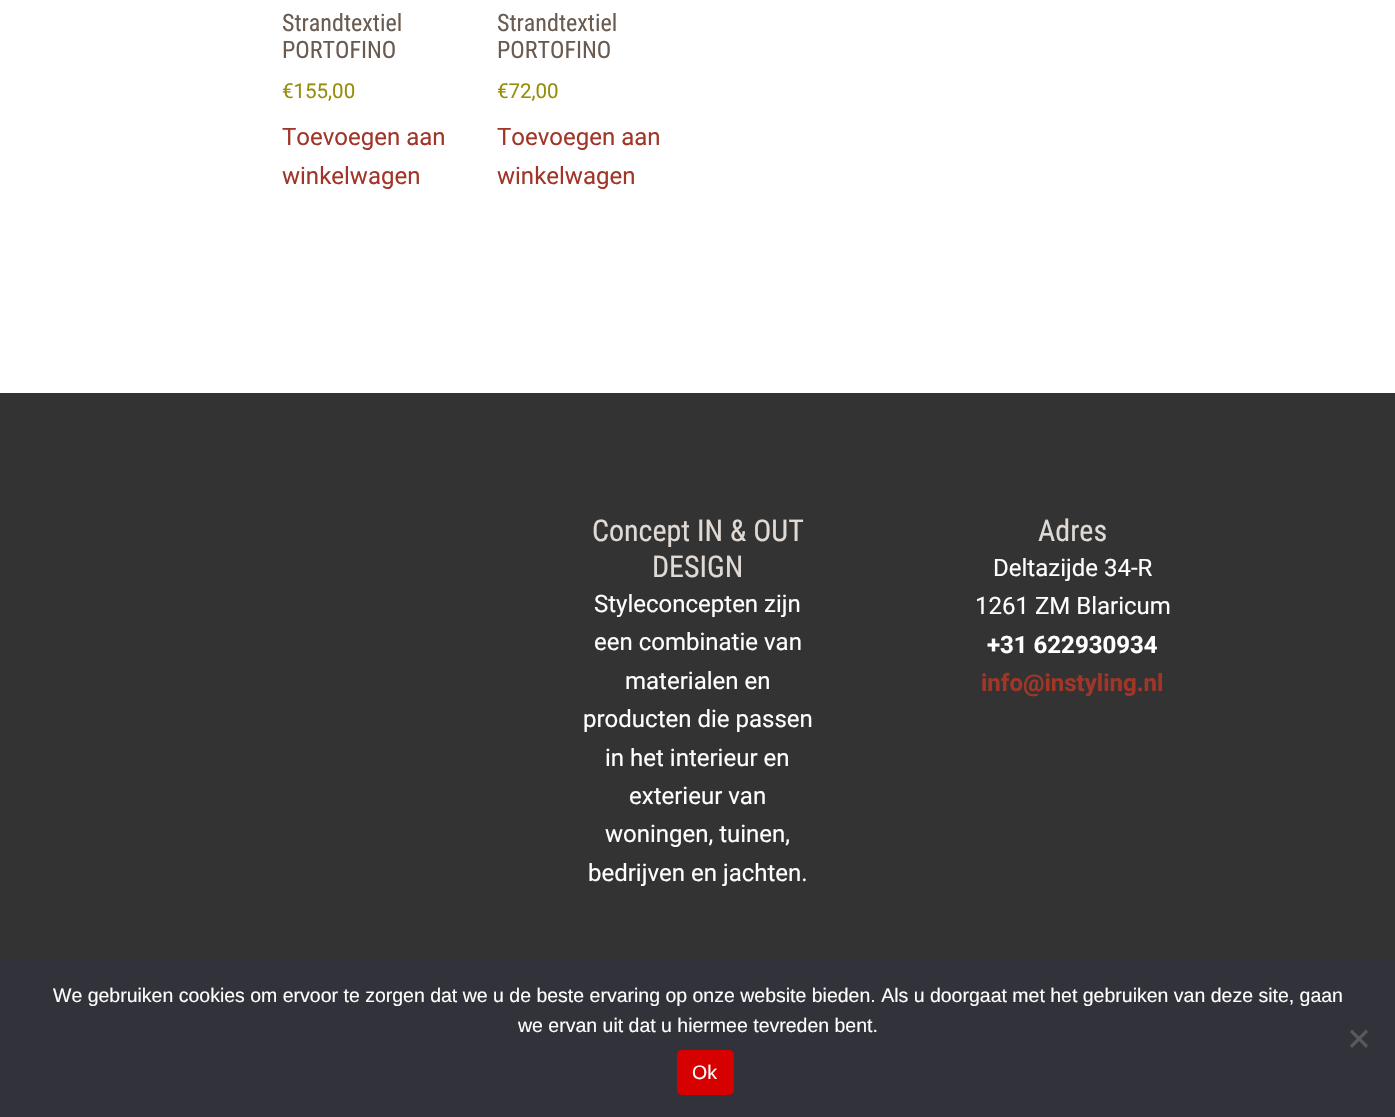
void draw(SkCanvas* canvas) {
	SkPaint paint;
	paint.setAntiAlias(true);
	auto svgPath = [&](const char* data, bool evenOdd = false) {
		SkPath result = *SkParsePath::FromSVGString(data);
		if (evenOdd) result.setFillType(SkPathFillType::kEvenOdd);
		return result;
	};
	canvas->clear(0xffffffff);
	SkFont f1(fontMgr->matchFamilyStyle("Roboto Condensed", SkFontStyle::Normal()), 24);
	f1.setSubpixel(true);
	paint.setColor(0xff6a5b51);
	canvas->drawString("Strandtextiel", 282, 31, f1, paint);
	canvas->drawString("PORTOFINO", 282, 58, f1, paint);
	SkFont f2(fontMgr->matchFamilyStyle("Roboto", SkFontStyle::Normal()), 20.5);
	f2.setSubpixel(true);
	paint.setColor(0xff958e09);
	canvas->drawString("€155,00", 282, 98, f2, paint);
	SkFont f3(fontMgr->matchFamilyStyle("Roboto", SkFontStyle::Normal()), 24);
	f3.setSubpixel(true);
	paint.setColor(0xffa13628);
	canvas->drawString("Toevoegen aan", 282, 145, f3, paint);
	canvas->drawString("winkelwagen", 282, 184, f3, paint);
	paint.setColor(0xff6a5b51);
	canvas->drawString("Strandtextiel", 497, 31, f1, paint);
	canvas->drawString("PORTOFINO", 497, 58, f1, paint);
	paint.setColor(0xff958e09);
	canvas->drawString("€72,00", 497, 98, f2, paint);
	paint.setColor(0xffa13628);
	canvas->drawString("Toevoegen aan", 497, 145, f3, paint);
	canvas->drawString("winkelwagen", 497, 184, f3, paint);
	paint.setColor(0xff333333);
	canvas->drawRect(SkRect::MakeXYWH(0, 393, 1395, 566), paint);
	SkFont f4(fontMgr->matchFamilyStyle("Roboto Condensed", SkFontStyle::Normal()), 30);
	f4.setSubpixel(true);
	paint.setColor(0xffe0d9d4);
	canvas->drawString("Concept IN & OUT", 592, 541, f4, paint);
	canvas->drawString("DESIGN", 652, 577, f4, paint);
	paint.setColor(0xffffffff);
	canvas->drawString("Styleconcepten zijn", 594, 612, f3, paint);
	canvas->drawString("een combinatie van", 594, 650, f3, paint);
	canvas->drawString("materialen en", 625, 689, f3, paint);
	canvas->drawString("producten die passen", 583, 727, f3, paint);
	canvas->drawString("in het interieur en", 605, 766, f3, paint);
	canvas->drawString("exterieur van", 629, 804, f3, paint);
	canvas->drawString("woningen, tuinen,", 605, 842, f3, paint);
	canvas->drawString("bedrijven en jachten.", 588, 881, f3, paint);
	paint.setColor(0xffe0d9d4);
	canvas->drawString("Adres", 1038, 541, f4, paint);
	paint.setColor(0xffffffff);
	canvas->drawString("Deltazijde 34-R", 993, 576, f3, paint);
	canvas->drawString("1261 ZM Blaricum", 975, 614, f3, paint);
	SkFont f5(fontMgr->matchFamilyStyle("Roboto", SkFontStyle::Bold()), 24);
	f5.setSubpixel(true);
	canvas->drawString("+31 622930934", 987, 653, f5, paint);
	paint.setColor(0xffa13628);
	canvas->drawString("info@instyling.nl", 981, 691, f5, paint);
	paint.setColor(0xff32323a);
	canvas->drawRect(SkRect::MakeXYWH(0, 959, 1395, 158), paint);
	SkFont f6(fontMgr->matchFamilyStyle("Liberation Sans", SkFontStyle::Normal()), 19.5);
	f6.setSubpixel(true);
	paint.setColor(0xffffffff);
	canvas->drawString("We gebruiken cookies om ervoor te zorgen dat we u de beste ervaring op onze website bieden. Als u doorgaat met het gebruiken van deze site, gaan", 53, 1002, f6, paint);
	canvas->drawString("we ervan uit dat u hiermee tevreden bent.", 518, 1032, f6, paint);
	paint.setColor(0xff59595d);
	canvas->drawPath(svgPath("M1366 1029.5L1368 1032L1352 1048L1350 1045.5Z"), paint);
	canvas->drawPath(svgPath("M1350 1032L1352 1029.5L1368 1045.5L1366 1048Z"), paint);
	paint.setColor(0xffd60000);
	canvas->drawRoundRect(SkRect::MakeXYWH(677, 1050, 57, 45), 5, 5, paint);
	paint.setColor(0xffffffff);
	canvas->drawString("Ok", 692, 1079, f6, paint);
}
